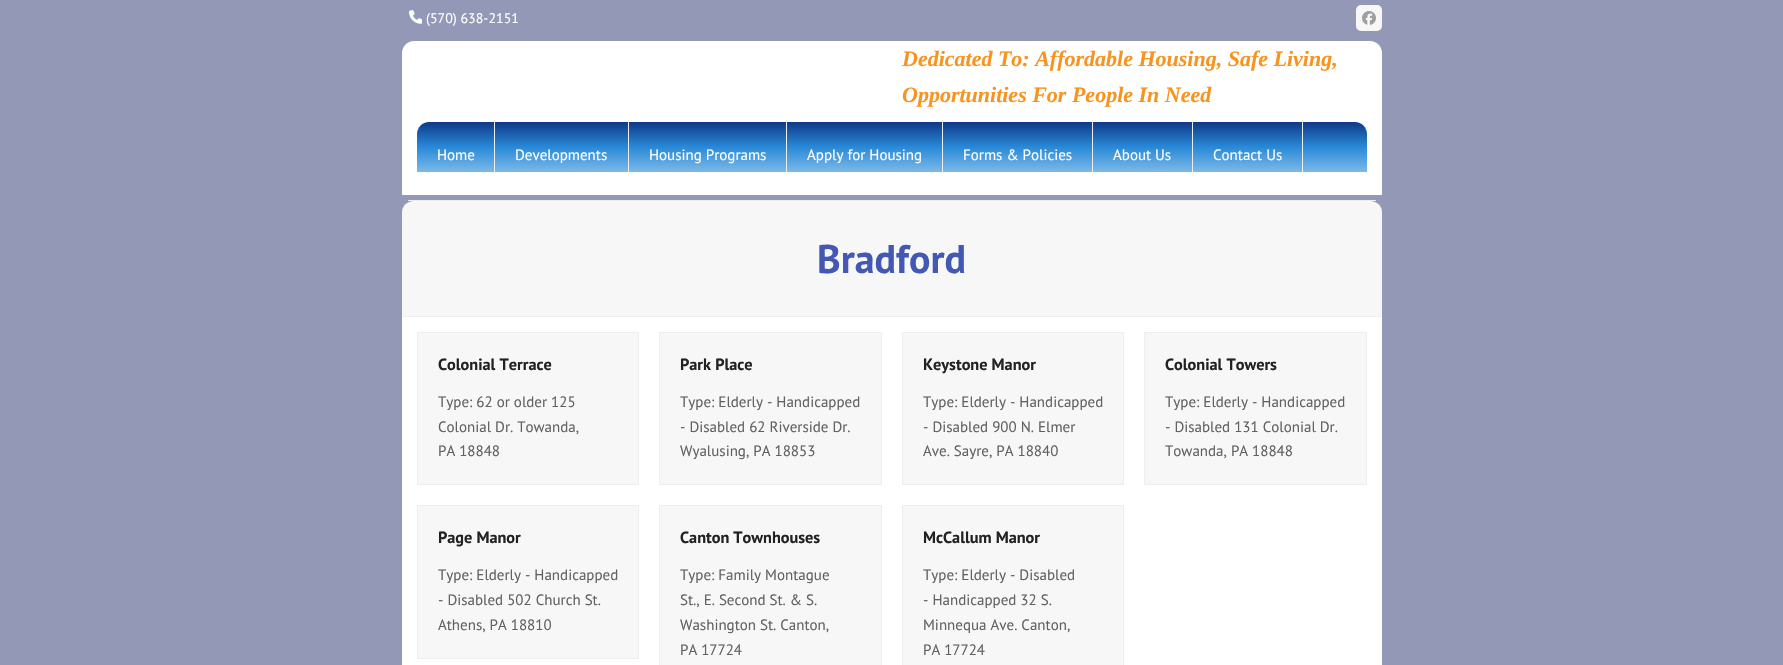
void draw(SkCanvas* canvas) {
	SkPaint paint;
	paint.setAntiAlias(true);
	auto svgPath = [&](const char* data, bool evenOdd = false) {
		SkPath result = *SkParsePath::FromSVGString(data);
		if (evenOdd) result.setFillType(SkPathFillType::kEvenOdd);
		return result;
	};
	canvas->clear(0xff9298b6);
	canvas->drawImageRect(SkImages::DeferredFromEncodedData(SkData::MakeFromFileName("img1.png")), SkRect::MakeXYWH(409, 10, 13, 14), SkSamplingOptions());
	SkFont f1(fontMgr->matchFamilyStyle("PT Sans", SkFontStyle::Normal()), 14);
	f1.setSubpixel(true);
	paint.setColor(0xffffffff);
	canvas->drawString("(570) 638-2151", 426, 23, f1, paint);
	paint.setColor(0xfff7f7f7);
	canvas->drawRoundRect(SkRect::MakeXYWH(1356, 5, 26, 26), 5, 5, paint);
	canvas->drawImageRect(SkImages::DeferredFromEncodedData(SkData::MakeFromFileName("img2.png")), SkRect::MakeXYWH(1362, 11, 14, 14), SkSamplingOptions());
	paint.setColor(0xffffffff);
	canvas->drawPath(svgPath("M414 41H1370C1376.5 41 1382 46.5 1382 53V195H402V53C402 46.5 407.5 41 414 41Z"), paint);
	SkFont f2(fontMgr->matchFamilyStyle("Liberation Serif", SkFontStyle::BoldItalic()), 22);
	f2.setSubpixel(true);
	paint.setColor(0xfff8931d);
	canvas->drawString("Dedicated To: Affordable Housing, Safe Living,", 902, 66, f2, paint);
	canvas->drawString("Opportunities For People In Need", 902, 102, f2, paint);
	{
		const SkColor colors[] = {0xff0e3987, 0xff2989d8, 0xff7db9e8};
		const float stops[] = {0, 0.5, 1};
		const SkPoint ends[] = {{892, 122}, {892, 172}};
		paint.setShader(SkGradientShader::MakeLinear(ends, colors, stops, 3, SkTileMode::kClamp));
		paint.setAlpha(255);
	}
	canvas->drawPath(svgPath("M429 122H1355C1361.5 122 1367 127.5 1367 134V172H417V134C417 127.5 422.5 122 429 122Z"), paint);
	paint.setShader(nullptr);
	paint.setColor(0xffeeeeee);
	canvas->drawRect(SkRect::MakeXYWH(494, 122, 1, 50), paint);
	SkFont f3(fontMgr->matchFamilyStyle("PT Sans", SkFontStyle::Normal()), 15);
	f3.setSubpixel(true);
	paint.setColor(0xffffffff);
	canvas->drawString("Home", 437, 160, f3, paint);
	paint.setColor(0xffeeeeee);
	canvas->drawRect(SkRect::MakeXYWH(628, 122, 1, 50), paint);
	paint.setColor(0xffffffff);
	canvas->drawString("Developments", 515, 160, f3, paint);
	paint.setColor(0xffeeeeee);
	canvas->drawRect(SkRect::MakeXYWH(786, 122, 1, 50), paint);
	paint.setColor(0xffffffff);
	canvas->drawString("Housing Programs", 649, 160, f3, paint);
	paint.setColor(0xffeeeeee);
	canvas->drawRect(SkRect::MakeXYWH(942, 122, 1, 50), paint);
	paint.setColor(0xffffffff);
	canvas->drawString("Apply for Housing", 807, 160, f3, paint);
	paint.setColor(0xffeeeeee);
	canvas->drawRect(SkRect::MakeXYWH(1092, 122, 1, 50), paint);
	paint.setColor(0xffffffff);
	canvas->drawString("Forms & Policies", 963, 160, f3, paint);
	paint.setColor(0xffeeeeee);
	canvas->drawRect(SkRect::MakeXYWH(1192, 122, 1, 50), paint);
	paint.setColor(0xffffffff);
	canvas->drawString("About Us", 1113, 160, f3, paint);
	paint.setColor(0xffeeeeee);
	canvas->drawRect(SkRect::MakeXYWH(1302, 122, 1, 50), paint);
	paint.setColor(0xffffffff);
	canvas->drawString("Contact Us", 1213, 160, f3, paint);
	paint.setColor(0xfff7f7f7);
	canvas->drawPath(svgPath("M414 201H1370C1377 201 1382 206 1382 212V316H402V212C402 206 407 201 414 201Z"), paint);
	paint.setColor(0xffeeeeee);
	canvas->drawRect(SkRect::MakeXYWH(408, 200, 968, 1), paint);
	canvas->drawRect(SkRect::MakeXYWH(402, 316, 980, 1), paint);
	SkFont f4(fontMgr->matchFamilyStyle("PT Sans", SkFontStyle::Bold()), 40);
	f4.setSubpixel(true);
	paint.setColor(0xff4258b3);
	canvas->drawString("Bradford", 817, 273, f4, paint);
	paint.setColor(0xffffffff);
	canvas->drawRect(SkRect::MakeXYWH(402, 317, 980, 348), paint);
	paint.setColor(0xfff7f7f7);
	canvas->drawRect(SkRect::MakeXYWH(417.5, 332.5, 221, 152), paint);
	paint.setStroke(true);
	paint.setStrokeWidth(1);
	paint.setColor(0xffeeeeee);
	canvas->drawRect(SkRect::MakeXYWH(417.5, 332.5, 221, 152), paint);
	SkFont f5(fontMgr->matchFamilyStyle("PT Sans", SkFontStyle::Bold()), 16.25);
	f5.setSubpixel(true);
	paint.setStroke(false);
	paint.setColor(0xff222222);
	canvas->drawString("Colonial Terrace", 438, 370, f5, paint);
	paint.setColor(0xff616161);
	canvas->drawString("Type: 62 or older 125", 438, 407, f3, paint);
	canvas->drawString("Colonial Dr. Towanda,", 438, 432, f3, paint);
	canvas->drawString("PA 18848", 438, 456, f3, paint);
	paint.setColor(0xfff7f7f7);
	canvas->drawRect(SkRect::MakeXYWH(659.5, 332.5, 222, 152), paint);
	paint.setStroke(true);
	paint.setColor(0xffeeeeee);
	canvas->drawRect(SkRect::MakeXYWH(659.5, 332.5, 222, 152), paint);
	paint.setStroke(false);
	paint.setColor(0xff222222);
	canvas->drawString("Park Place", 680, 370, f5, paint);
	paint.setColor(0xff616161);
	canvas->drawString("Type: Elderly - Handicapped", 680, 407, f3, paint);
	canvas->drawString("- Disabled 62 Riverside Dr.", 680, 432, f3, paint);
	canvas->drawString("Wyalusing, PA 18853", 680, 456, f3, paint);
	paint.setColor(0xfff7f7f7);
	canvas->drawRect(SkRect::MakeXYWH(902.5, 332.5, 221, 152), paint);
	paint.setStroke(true);
	paint.setColor(0xffeeeeee);
	canvas->drawRect(SkRect::MakeXYWH(902.5, 332.5, 221, 152), paint);
	paint.setStroke(false);
	paint.setColor(0xff222222);
	canvas->drawString("Keystone Manor", 923, 370, f5, paint);
	paint.setColor(0xff616161);
	canvas->drawString("Type: Elderly - Handicapped", 923, 407, f3, paint);
	canvas->drawString("- Disabled 900 N. Elmer", 923, 432, f3, paint);
	canvas->drawString("Ave. Sayre, PA 18840", 923, 456, f3, paint);
	paint.setColor(0xfff7f7f7);
	canvas->drawRect(SkRect::MakeXYWH(1144.5, 332.5, 222, 152), paint);
	paint.setStroke(true);
	paint.setColor(0xffeeeeee);
	canvas->drawRect(SkRect::MakeXYWH(1144.5, 332.5, 222, 152), paint);
	paint.setStroke(false);
	paint.setColor(0xff222222);
	canvas->drawString("Colonial Towers", 1165, 370, f5, paint);
	paint.setColor(0xff616161);
	canvas->drawString("Type: Elderly - Handicapped", 1165, 407, f3, paint);
	canvas->drawString("- Disabled 131 Colonial Dr.", 1165, 432, f3, paint);
	canvas->drawString("Towanda, PA 18848", 1165, 456, f3, paint);
	paint.setColor(0xfff7f7f7);
	canvas->drawRect(SkRect::MakeXYWH(417.5, 505.5, 221, 153), paint);
	paint.setStroke(true);
	paint.setColor(0xffeeeeee);
	canvas->drawRect(SkRect::MakeXYWH(417.5, 505.5, 221, 153), paint);
	paint.setStroke(false);
	paint.setColor(0xff222222);
	canvas->drawString("Page Manor", 438, 543, f5, paint);
	paint.setColor(0xff616161);
	canvas->drawString("Type: Elderly - Handicapped", 438, 580, f3, paint);
	canvas->drawString("- Disabled 502 Church St.", 438, 605, f3, paint);
	canvas->drawString("Athens, PA 18810", 438, 630, f3, paint);
	paint.setColor(0xfff7f7f7);
	canvas->drawRect(SkRect::MakeXYWH(659.5, 505.5, 222, 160), paint);
	paint.setStroke(true);
	paint.setColor(0xffeeeeee);
	canvas->drawRect(SkRect::MakeXYWH(659.5, 505.5, 222, 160), paint);
	paint.setStroke(false);
	paint.setColor(0xff222222);
	canvas->drawString("Canton Townhouses", 680, 543, f5, paint);
	paint.setColor(0xff616161);
	canvas->drawString("Type: Family Montague", 680, 580, f3, paint);
	canvas->drawString("St., E. Second St. & S.", 680, 605, f3, paint);
	canvas->drawString("Washington St. Canton,", 680, 630, f3, paint);
	canvas->drawString("PA 17724", 680, 655, f3, paint);
	paint.setColor(0xfff7f7f7);
	canvas->drawRect(SkRect::MakeXYWH(902.5, 505.5, 221, 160), paint);
	paint.setStroke(true);
	paint.setColor(0xffeeeeee);
	canvas->drawRect(SkRect::MakeXYWH(902.5, 505.5, 221, 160), paint);
	paint.setStroke(false);
	paint.setColor(0xff222222);
	canvas->drawString("McCallum Manor", 923, 543, f5, paint);
	paint.setColor(0xff616161);
	canvas->drawString("Type: Elderly - Disabled", 923, 580, f3, paint);
	canvas->drawString("- Handicapped 32 S.", 923, 605, f3, paint);
	canvas->drawString("Minnequa Ave. Canton,", 923, 630, f3, paint);
	canvas->drawString("PA 17724", 923, 655, f3, paint);
}
